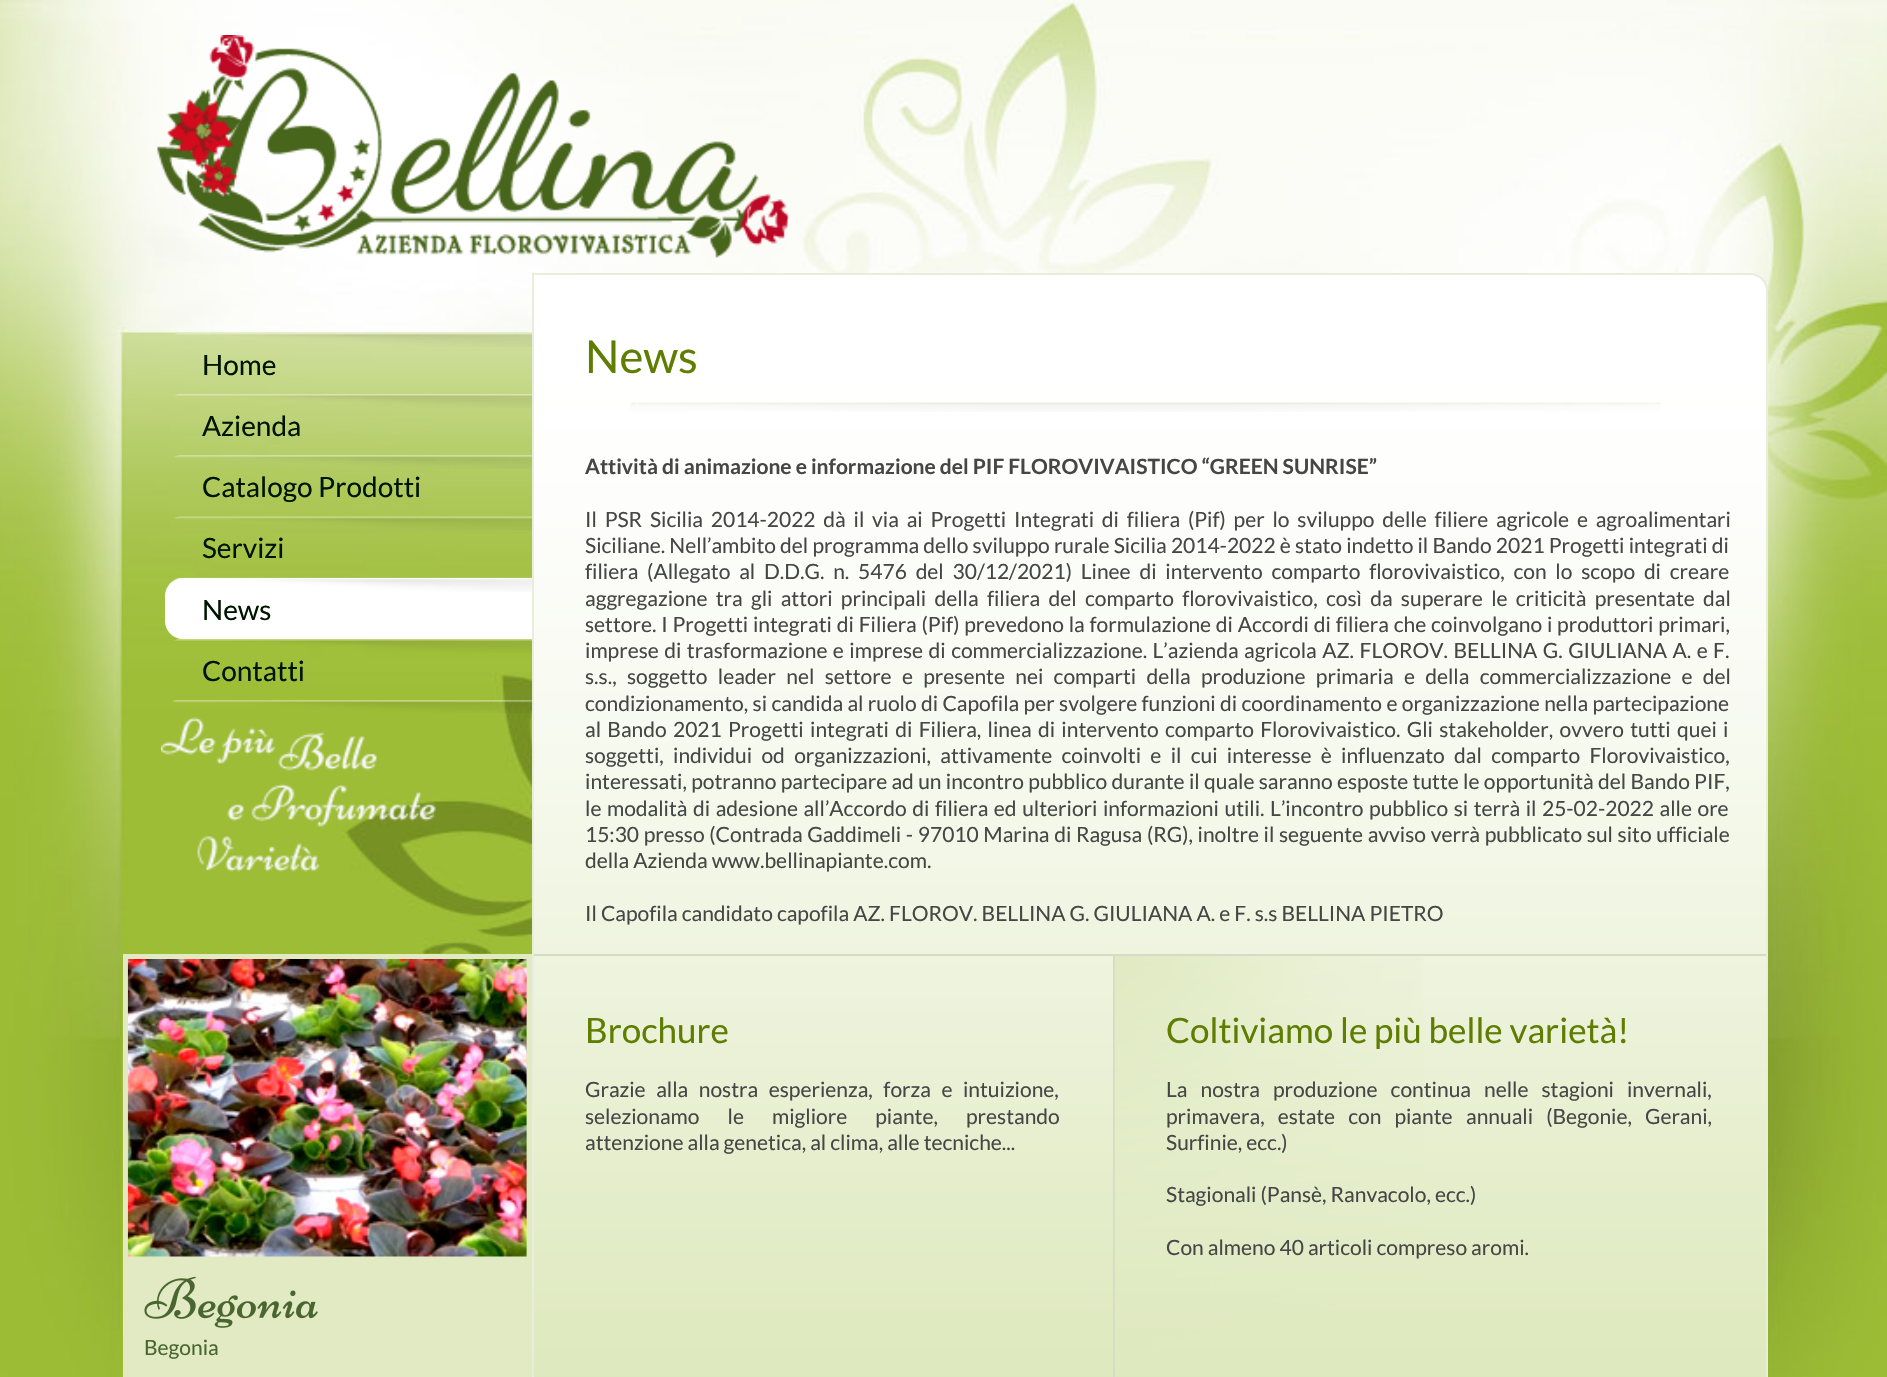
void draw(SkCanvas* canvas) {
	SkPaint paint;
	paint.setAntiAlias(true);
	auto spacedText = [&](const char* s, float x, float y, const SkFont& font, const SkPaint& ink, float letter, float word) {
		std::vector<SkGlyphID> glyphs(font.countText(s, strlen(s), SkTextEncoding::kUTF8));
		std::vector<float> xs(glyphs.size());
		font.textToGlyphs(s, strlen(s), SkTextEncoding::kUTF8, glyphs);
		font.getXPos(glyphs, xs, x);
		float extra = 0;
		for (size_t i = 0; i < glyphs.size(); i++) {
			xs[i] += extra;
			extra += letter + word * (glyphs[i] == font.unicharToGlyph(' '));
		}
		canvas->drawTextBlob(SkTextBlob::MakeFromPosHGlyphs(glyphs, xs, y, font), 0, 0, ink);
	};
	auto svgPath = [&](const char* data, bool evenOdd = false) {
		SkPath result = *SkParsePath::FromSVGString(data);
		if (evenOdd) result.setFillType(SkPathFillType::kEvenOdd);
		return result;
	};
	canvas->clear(0xffffffff);
	canvas->drawImageRect(SkImages::DeferredFromEncodedData(SkData::MakeFromFileName("img1.png")), SkRect::MakeXYWH(0, 0, 1887, 1377), SkSamplingOptions());
	canvas->drawImageRect(SkImages::DeferredFromEncodedData(SkData::MakeFromFileName("img2.png")), SkRect::MakeXYWH(157, 35, 633, 223), SkSamplingOptions());
	canvas->drawImageRect(SkImages::DeferredFromEncodedData(SkData::MakeFromFileName("img3.png")), SkRect::MakeXYWH(161, 717, 275, 155), SkSamplingOptions());
	canvas->drawImageRect(SkImages::DeferredFromEncodedData(SkData::MakeFromFileName("img4.png")), SkRect::MakeXYWH(174, 332, 358, 15), SkSamplingOptions());
	SkFont f1(fontMgr->matchFamilyStyle("Lato", SkFontStyle::Normal()), 28);
	f1.setSubpixel(true);
	paint.setColor(0xff001500);
	canvas->drawString("Home", 202, 375, f1, paint);
	canvas->drawImageRect(SkImages::DeferredFromEncodedData(SkData::MakeFromFileName("img5.png")), SkRect::MakeXYWH(174, 394, 358, 14), SkSamplingOptions());
	canvas->drawString("Azienda", 202, 436, f1, paint);
	canvas->drawImageRect(SkImages::DeferredFromEncodedData(SkData::MakeFromFileName("img6.png")), SkRect::MakeXYWH(174, 455, 358, 14), SkSamplingOptions());
	canvas->drawString("Catalogo Prodotti", 202, 497, f1, paint);
	canvas->drawImageRect(SkImages::DeferredFromEncodedData(SkData::MakeFromFileName("img7.png")), SkRect::MakeXYWH(173, 516, 359, 14), SkSamplingOptions());
	canvas->drawString("Servizi", 202, 558, f1, paint);
	paint.setColor(0xffffffff);
	canvas->drawPath(svgPath("M183 578H532V639H183C173 639 165 631 165 621V596C165 586 173 578 183 578Z"), paint);
	canvas->drawImageRect(SkImages::DeferredFromEncodedData(SkData::MakeFromFileName("img8.png")), SkRect::MakeXYWH(174, 577, 358, 15), SkSamplingOptions());
	paint.setColor(0xff001500);
	canvas->drawString("News", 202, 620, f1, paint);
	canvas->drawImageRect(SkImages::DeferredFromEncodedData(SkData::MakeFromFileName("img9.png")), SkRect::MakeXYWH(174, 639, 358, 14), SkSamplingOptions());
	canvas->drawString("Contatti", 202, 681, f1, paint);
	canvas->drawImageRect(SkImages::DeferredFromEncodedData(SkData::MakeFromFileName("img10.png")), SkRect::MakeXYWH(173, 700, 359, 13), SkSamplingOptions());
	canvas->drawImageRect(SkImages::DeferredFromEncodedData(SkData::MakeFromFileName("img11.png")), SkRect::MakeXYWH(534, 274, 1234, 1103), SkSamplingOptions());
	paint.setStroke(true);
	paint.setStrokeWidth(2);
	paint.setColor(0xffe9eddb);
	canvas->drawPath(svgPath("M533 274H1750C1759.5 274 1767 281.5 1767 291V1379C1767 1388.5 1759.5 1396 1750 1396H533Z"), paint);
	canvas->drawImageRect(SkImages::DeferredFromEncodedData(SkData::MakeFromFileName("img12.png")), SkRect::MakeXYWH(630, 402, 1031, 10), SkSamplingOptions());
	SkFont f2(fontMgr->matchFamilyStyle("Lato", SkFontStyle::Normal()), 45.5);
	f2.setSubpixel(true);
	paint.setStroke(false);
	paint.setColor(0xff5f7d00);
	canvas->drawString("News", 585, 373, f2, paint);
	SkFont f3(fontMgr->matchFamilyStyle("Lato", SkFontStyle::Bold()), 21);
	f3.setSubpixel(true);
	paint.setColor(0xff464646);
	canvas->drawString("Attività di animazione e informazione del PIF FLOROVIVAISTICO “GREEN SUNRISE”", 585, 474, f3, paint);
	SkFont f4(fontMgr->matchFamilyStyle("Lato", SkFontStyle::Normal()), 21);
	f4.setSubpixel(true);
	spacedText("Il PSR Sicilia 2014-2022 dà il via ai Progetti Integrati di filiera (Pif) per lo sviluppo delle filiere agricole e agroalimentari", 585, 527, f4, paint, 0, 3.75);
	spacedText("Siciliane. Nell’ambito del programma dello sviluppo rurale Sicilia 2014-2022 è stato indetto il Bando 2021 Progetti integrati di", 585, 553, f4, paint, 0, 0.1);
	spacedText("filiera (Allegato al D.D.G. n. 5476 del 30/12/2021) Linee di intervento comparto florovivaistico, con lo scopo di creare", 585, 579, f4, paint, 0, 4.75);
	spacedText("aggregazione tra gli attori principali della filiera del comparto florovivaistico, così da superare le criticità presentate dal", 585, 606, f4, paint, 0, 4.25);
	spacedText("settore. I Progetti integrati di Filiera (Pif) prevedono la formulazione di Accordi di filiera che coinvolgano i produttori primari,", 585, 632, f4, paint, 0, 0.75);
	spacedText("imprese di trasformazione e imprese di commercializzazione. L’azienda agricola AZ. FLOROV. BELLINA G. GIULIANA A. e F.", 585, 658, f4, paint, 0, 1.4);
	spacedText("s.s., soggetto leader nel settore e presente nei comparti della produzione primaria e della commercializzazione e del", 585, 684, f4, paint, 0, 6.25);
	spacedText("condizionamento, si candida al ruolo di Capofila per svolgere funzioni di coordinamento e organizzazione nella partecipazione", 585, 711, f4, paint, 0, 0.3);
	spacedText("al Bando 2021 Progetti integrati di Filiera, linea di intervento comparto Florovivaistico. Gli stakeholder, ovvero tutti quei i", 585, 737, f4, paint, 0, 2.25);
	spacedText("soggetti, individui od organizzazioni, attivamente coinvolti e il cui interesse è influenzato dal comparto Florovivaistico,", 585, 763, f4, paint, 0, 5.25);
	spacedText("interessati, potranno partecipare ad un incontro pubblico durante il quale saranno esposte tutte le opportunità del Bando PIF,", 585, 789, f4, paint, 0, 0.25);
	spacedText("le modalità di adesione all’Accordo di filiera ed ulteriori informazioni utili. L’incontro pubblico si terrà il 25-02-2022 alle ore", 585, 816, f4, paint, 0, 1.5);
	spacedText("15:30 presso (Contrada Gaddimeli - 97010 Marina di Ragusa (RG), inoltre il seguente avviso verrà pubblicato sul sito ufficiale", 585, 842, f4, paint, 0, 0.6);
	canvas->drawString("della Azienda www.bellinapiante.com.", 585, 868, f4, paint);
	canvas->drawString("Il Capofila candidato capofila AZ. FLOROV. BELLINA G. GIULIANA A. e F. s.s BELLINA PIETRO", 585, 921, f4, paint);
	paint.setColor(0xffd5dbc5);
	canvas->drawRect(SkRect::MakeXYWH(534, 954, 581, 2), paint);
	canvas->drawRect(SkRect::MakeXYWH(1113, 954, 2, 423), paint);
	SkFont f5(fontMgr->matchFamilyStyle("Lato", SkFontStyle::Normal()), 35);
	f5.setSubpixel(true);
	paint.setColor(0xff5f7d00);
	canvas->drawString("Brochure", 585, 1043, f5, paint);
	paint.setColor(0xff464646);
	spacedText("Grazie alla nostra esperienza, forza e intuizione,", 585, 1097, f4, paint, 0, 6.5);
	spacedText("selezionamo le migliore piante,", 585, 1124, f4, paint, 0, 24);
	canvas->drawString("prestando", 966, 1124, f4, paint);
	canvas->drawString("attenzione alla genetica, al clima, alle tecniche...", 585, 1150, f4, paint);
	canvas->drawImageRect(SkImages::DeferredFromEncodedData(SkData::MakeFromFileName("img13.png")), SkRect::MakeXYWH(1114, 955, 309, 418), SkSamplingOptions());
	paint.setColor(0xffd5dbc5);
	canvas->drawRect(SkRect::MakeXYWH(1115, 954, 651, 2), paint);
	paint.setColor(0xff5f7d00);
	canvas->drawString("Coltiviamo le più belle varietà!", 1166, 1043, f5, paint);
	paint.setColor(0xff464646);
	spacedText("La nostra produzione continua nelle stagioni invernali,", 1166, 1097, f4, paint, 0, 9);
	spacedText("primavera, estate con piante", 1166, 1124, f4, paint, 0, 9);
	spacedText("annuali (Begonie, Gerani,", 1466, 1124, f4, paint, 0, 9);
	canvas->drawString("Surfinie, ecc.)", 1166, 1150, f4, paint);
	canvas->drawString("Stagionali (Pansè, Ranvacolo, ecc.)", 1166, 1202, f4, paint);
	canvas->drawString("Con almeno 40 articoli compreso aromi.", 1166, 1255, f4, paint);
	paint.setColor(0xffe1eac3);
	canvas->drawRect(SkRect::MakeXYWH(123, 954, 409, 423), paint);
	canvas->drawImageRect(SkImages::DeferredFromEncodedData(SkData::MakeFromFileName("img15.png")), SkRect::MakeXYWH(127, 959, 400, 298), SkSamplingOptions());
	canvas->drawImageRect(SkImages::DeferredFromEncodedData(SkData::MakeFromFileName("img14.png")), SkRect::MakeXYWH(526, 959, 1, 298), SkSamplingOptions());
	canvas->drawImageRect(SkImages::DeferredFromEncodedData(SkData::MakeFromFileName("img16.png")), SkRect::MakeXYWH(144, 1276, 174, 52), SkSamplingOptions());
	paint.setColor(0xff49662f);
	canvas->drawString("Begonia", 144, 1355, f4, paint);
}
